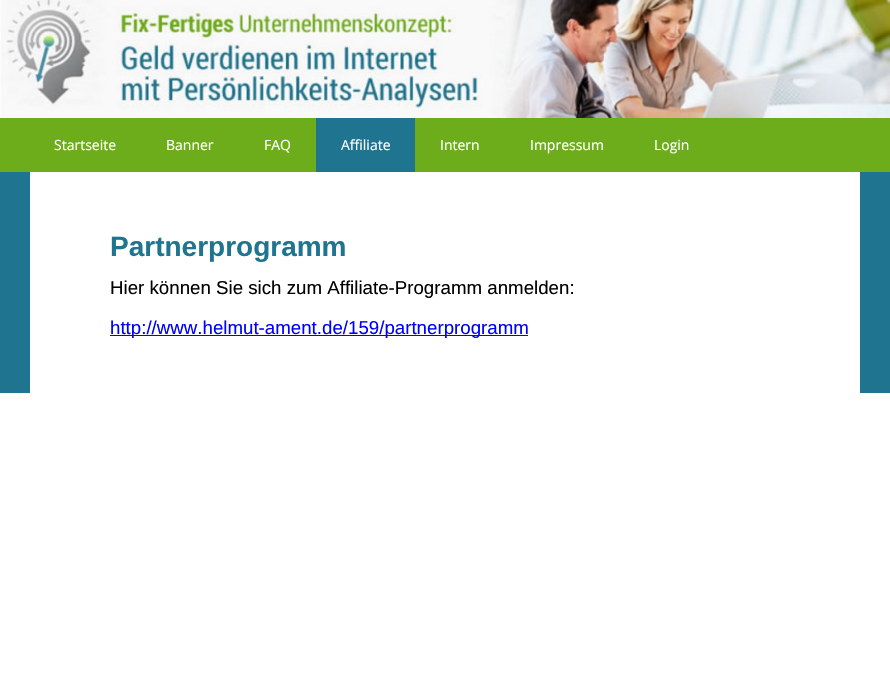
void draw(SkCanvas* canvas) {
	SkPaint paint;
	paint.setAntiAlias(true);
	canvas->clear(0xffffffff);
	canvas->drawImageRect(SkImages::DeferredFromEncodedData(SkData::MakeFromFileName("img1.png")), SkRect::MakeXYWH(0, 0, 890, 118), SkSamplingOptions());
	paint.setColor(0xff6dac1a);
	canvas->drawRect(SkRect::MakeXYWH(0, 118, 890, 54), paint);
	SkFont f1(fontMgr->matchFamilyStyle("Open Sans", SkFontStyle::Normal()), 14);
	f1.setSubpixel(true);
	paint.setColor(0xffffffff);
	canvas->drawString("Startseite", 54, 150, f1, paint);
	canvas->drawString("Banner", 166, 150, f1, paint);
	canvas->drawString("FAQ", 264, 150, f1, paint);
	paint.setColor(0xff1f748f);
	canvas->drawRect(SkRect::MakeXYWH(316, 118, 99, 54), paint);
	paint.setColor(0xffffffff);
	canvas->drawString("Affiliate", 341, 150, f1, paint);
	canvas->drawString("Intern", 440, 150, f1, paint);
	canvas->drawString("Impressum", 530, 150, f1, paint);
	canvas->drawString("Login", 654, 150, f1, paint);
	paint.setColor(0xff1f748f);
	canvas->drawRect(SkRect::MakeXYWH(0, 172, 890, 221), paint);
	paint.setColor(0xffffffff);
	canvas->drawRect(SkRect::MakeXYWH(30, 172, 830, 221), paint);
	SkFont f2(fontMgr->matchFamilyStyle("Liberation Sans", SkFontStyle::Bold()), 28);
	f2.setSubpixel(true);
	paint.setColor(0xff1f748f);
	canvas->drawString("Partnerprogramm", 110, 256, f2, paint);
	SkFont f3(fontMgr->matchFamilyStyle("Liberation Sans", SkFontStyle::Normal()), 18.7);
	f3.setSubpixel(true);
	paint.setColor(0xff000000);
	canvas->drawString("Hier können Sie sich zum Affiliate-Programm anmelden:", 110, 294, f3, paint);
	paint.setColor(0xff0000ff);
	canvas->drawRect(SkRect::MakeXYWH(110, 335, 418, 1), paint);
	canvas->drawString("http://www.helmut-ament.de/159/partnerprogramm", 110, 334, f3, paint);
}
